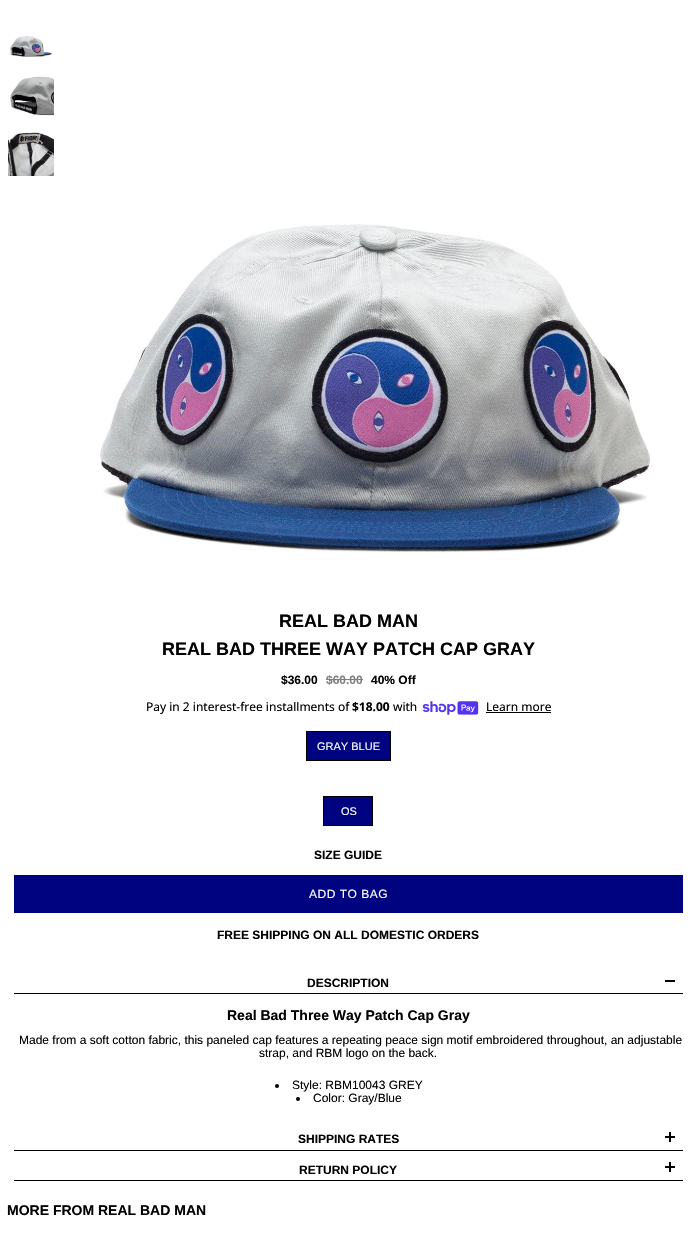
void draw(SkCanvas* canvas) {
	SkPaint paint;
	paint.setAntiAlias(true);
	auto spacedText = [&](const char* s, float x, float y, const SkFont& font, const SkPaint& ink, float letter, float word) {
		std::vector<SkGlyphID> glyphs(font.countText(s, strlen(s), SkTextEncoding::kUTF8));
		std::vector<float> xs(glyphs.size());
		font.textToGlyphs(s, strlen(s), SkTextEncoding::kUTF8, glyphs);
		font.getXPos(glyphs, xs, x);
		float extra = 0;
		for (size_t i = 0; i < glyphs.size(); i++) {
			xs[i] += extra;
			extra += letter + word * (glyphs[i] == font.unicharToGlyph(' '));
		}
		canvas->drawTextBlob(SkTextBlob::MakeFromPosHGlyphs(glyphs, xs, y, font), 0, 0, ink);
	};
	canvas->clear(0xffffffff);
	canvas->drawImageRect(SkImages::DeferredFromEncodedData(SkData::MakeFromFileName("img1.png")), SkRect::MakeXYWH(10, 36, 42, 21), SkSamplingOptions());
	canvas->drawImageRect(SkImages::DeferredFromEncodedData(SkData::MakeFromFileName("img2.png")), SkRect::MakeXYWH(10, 76, 44, 40), SkSamplingOptions());
	canvas->drawImageRect(SkImages::DeferredFromEncodedData(SkData::MakeFromFileName("img3.png")), SkRect::MakeXYWH(8, 132, 46, 44), SkSamplingOptions());
	canvas->drawImageRect(SkImages::DeferredFromEncodedData(SkData::MakeFromFileName("img4.png")), SkRect::MakeXYWH(100, 224, 553, 329), SkSamplingOptions());
	SkFont f1(fontMgr->matchFamilyStyle("Liberation Sans", SkFontStyle::Bold()), 18);
	f1.setSubpixel(true);
	paint.setColor(0xff000000);
	canvas->drawString("REAL BAD MAN", 279, 627, f1, paint);
	canvas->drawString("REAL BAD THREE WAY PATCH CAP GRAY", 162, 655, f1, paint);
	SkFont f2(fontMgr->matchFamilyStyle("Liberation Sans", SkFontStyle::Bold()), 12);
	f2.setSubpixel(true);
	canvas->drawString("$36.00", 281, 684, f2, paint);
	paint.setColor(0xff808080);
	canvas->drawString("$60.00", 326, 684, f2, paint);
	canvas->drawRect(SkRect::MakeXYWH(326, 679, 37, 1), paint);
	paint.setColor(0xff000000);
	canvas->drawString("40% Off", 371, 684, f2, paint);
	SkFont f3(fontMgr->matchFamilyStyle("Noto Sans", SkFontStyle::Normal()), 12);
	f3.setSubpixel(true);
	canvas->drawString("Pay in 2 interest-free installments of", 146, 711, f3, paint);
	SkFont f4(fontMgr->matchFamilyStyle("Noto Sans", SkFontStyle::Bold()), 12);
	f4.setSubpixel(true);
	canvas->drawString("$18.00", 352, 711, f4, paint);
	canvas->drawString("with", 393, 711, f3, paint);
	canvas->drawImageRect(SkImages::DeferredFromEncodedData(SkData::MakeFromFileName("img5.png")), SkRect::MakeXYWH(422, 701, 57, 14), SkSamplingOptions());
	canvas->drawString("Learn more", 486, 711, f3, paint);
	canvas->drawRect(SkRect::MakeXYWH(486, 712, 65, 1), paint);
	paint.setColor(0xff000380);
	canvas->drawRect(SkRect::MakeXYWH(306.5, 731.5, 84, 29), paint);
	paint.setStroke(true);
	paint.setStrokeWidth(1);
	paint.setColor(0xff000000);
	canvas->drawRect(SkRect::MakeXYWH(306.5, 731.5, 84, 29), paint);
	SkFont f5(fontMgr->matchFamilyStyle("Liberation Sans", SkFontStyle::Normal()), 11);
	f5.setSubpixel(true);
	paint.setStroke(false);
	paint.setColor(0xffffffff);
	canvas->drawString("GRAY BLUE", 317, 750, f5, paint);
	paint.setColor(0xff000380);
	canvas->drawRect(SkRect::MakeXYWH(323.5, 796.5, 49, 29), paint);
	paint.setStroke(true);
	paint.setColor(0xff000000);
	canvas->drawRect(SkRect::MakeXYWH(323.5, 796.5, 49, 29), paint);
	paint.setStroke(false);
	paint.setColor(0xffffffff);
	canvas->drawString("OS", 341, 815, f5, paint);
	paint.setColor(0xff000000);
	canvas->drawString("SIZE GUIDE", 314, 859, f2, paint);
	paint.setColor(0xff000380);
	canvas->drawRect(SkRect::MakeXYWH(14, 875, 669, 38), paint);
	SkFont f6(fontMgr->matchFamilyStyle("Liberation Sans", SkFontStyle::Normal()), 12);
	f6.setSubpixel(true);
	paint.setColor(0xffffffff);
	spacedText("ADD TO BAG", 309, 898, f6, paint, 0.5, 0);
	paint.setColor(0xff000000);
	canvas->drawString("FREE SHIPPING ON ALL DOMESTIC ORDERS", 217, 939, f2, paint);
	canvas->drawRect(SkRect::MakeXYWH(14, 993, 669, 1), paint);
	canvas->drawString("DESCRIPTION", 307, 987, f2, paint);
	canvas->drawRect(SkRect::MakeXYWH(665, 980, 10, 2), paint);
	SkFont f7(fontMgr->matchFamilyStyle("Liberation Sans", SkFontStyle::Bold()), 14);
	f7.setSubpixel(true);
	canvas->drawString("Real Bad Three Way Patch Cap Gray", 227, 1020, f7, paint);
	canvas->drawString("Made from a soft cotton fabric, this paneled cap features a repeating peace sign motif embroidered throughout, an adjustable", 19, 1044, f6, paint);
	canvas->drawString("strap, and RBM logo on the back.", 259, 1057, f6, paint);
	canvas->drawCircle(277, 1086, 2, paint);
	canvas->drawString("Style: RBM10043 GREY", 292, 1089, f6, paint);
	canvas->drawCircle(298, 1099, 2, paint);
	canvas->drawString("Color: Gray/Blue", 313, 1102, f6, paint);
	canvas->drawRect(SkRect::MakeXYWH(14, 1150, 669, 1), paint);
	canvas->drawString("SHIPPING RATES", 298, 1143, f2, paint);
	canvas->drawImageRect(SkImages::DeferredFromEncodedData(SkData::MakeFromFileName("img6.png")), SkRect::MakeXYWH(665, 1132, 10, 10), SkSamplingOptions());
	canvas->drawRect(SkRect::MakeXYWH(14, 1180, 669, 1), paint);
	canvas->drawString("RETURN POLICY", 299, 1174, f2, paint);
	canvas->drawImageRect(SkImages::DeferredFromEncodedData(SkData::MakeFromFileName("img6.png")), SkRect::MakeXYWH(665, 1162, 10, 10), SkSamplingOptions());
	canvas->drawString("MORE FROM REAL BAD MAN", 7, 1215, f7, paint);
}
